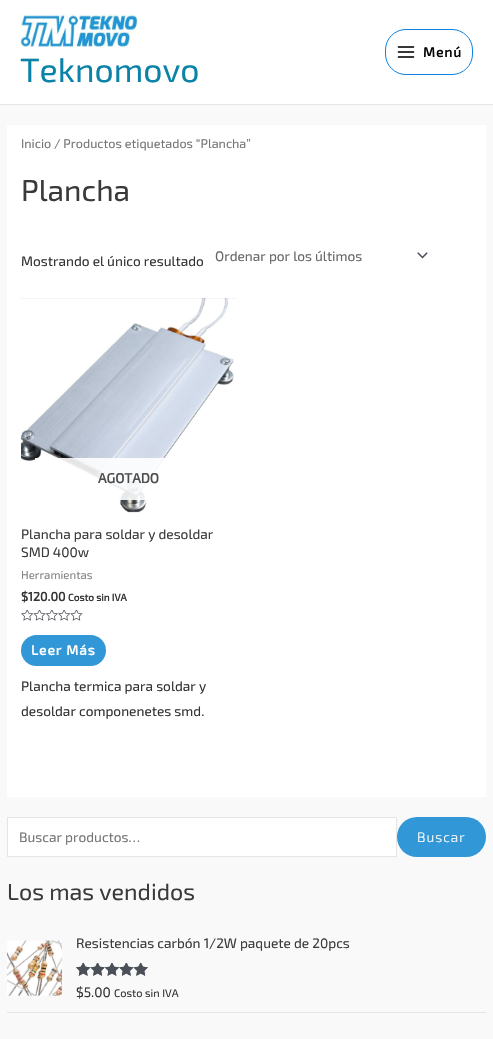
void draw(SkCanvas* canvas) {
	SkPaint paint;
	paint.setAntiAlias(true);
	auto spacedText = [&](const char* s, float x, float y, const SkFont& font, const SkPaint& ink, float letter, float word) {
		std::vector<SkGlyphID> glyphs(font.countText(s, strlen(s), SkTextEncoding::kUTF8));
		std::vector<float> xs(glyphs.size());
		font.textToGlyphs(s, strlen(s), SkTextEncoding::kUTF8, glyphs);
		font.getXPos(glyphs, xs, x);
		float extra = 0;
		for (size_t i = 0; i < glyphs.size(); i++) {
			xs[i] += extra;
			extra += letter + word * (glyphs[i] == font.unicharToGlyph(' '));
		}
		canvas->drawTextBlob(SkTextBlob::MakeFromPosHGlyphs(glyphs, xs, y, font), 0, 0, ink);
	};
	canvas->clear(0xfff9f9f9);
	paint.setColor(0xffffffff);
	canvas->drawRect(SkRect::MakeXYWH(0, 0, 493, 104), paint);
	paint.setColor(0xffe5e5e5);
	canvas->drawRect(SkRect::MakeXYWH(0, 104, 493, 1), paint);
	paint.setStroke(true);
	paint.setStrokeWidth(1);
	paint.setColor(0xff0c82e2);
	canvas->drawRoundRect(SkRect::MakeXYWH(385.5, 29.5, 87, 45), 20.5, 20.5, paint);
	canvas->drawImageRect(SkImages::DeferredFromEncodedData(SkData::MakeFromFileName("img1.png")), SkRect::MakeXYWH(397, 46, 18, 12), SkSamplingOptions());
	SkFont f1(fontMgr->matchFamilyStyle("Exo 2", SkFontStyle::Bold()), 13.7);
	f1.setSubpixel(true);
	paint.setStroke(false);
	paint.setColor(0xff050505);
	spacedText("Menú", 423, 57, f1, paint, 1, 0);
	canvas->drawImageRect(SkImages::DeferredFromEncodedData(SkData::MakeFromFileName("img2.png")), SkRect::MakeXYWH(20, 14, 119, 33), SkSamplingOptions());
	SkFont f2(fontMgr->matchFamilyStyle("Exo 2", SkFontStyle::Normal()), 33.75);
	f2.setSubpixel(true);
	paint.setColor(0xff0b83a8);
	canvas->drawString("Teknomovo", 20, 82, f2, paint);
	paint.setColor(0xffffffff);
	canvas->drawRect(SkRect::MakeXYWH(7, 125, 479, 672), paint);
	SkFont f3(fontMgr->matchFamilyStyle("Exo 2", SkFontStyle::Normal()), 12.6);
	f3.setSubpixel(true);
	paint.setColor(0xff757575);
	canvas->drawString("Inicio / Productos etiquetados “Plancha”", 21, 148, f3, paint);
	SkFont f4(fontMgr->matchFamilyStyle("Exo 2", SkFontStyle::Normal()), 30);
	f4.setSubpixel(true);
	paint.setColor(0xff3a3a3a);
	canvas->drawString("Plancha", 21, 201, f4, paint);
	SkFont f5(fontMgr->matchFamilyStyle("Exo 2", SkFontStyle::Normal()), 13.7);
	f5.setSubpixel(true);
	paint.setColor(0xff333333);
	canvas->drawString("Mostrando el único resultado", 21, 266, f5, paint);
	canvas->drawImageRect(SkImages::DeferredFromEncodedData(SkData::MakeFromFileName("img3.png")), SkRect::MakeXYWH(417, 252, 11, 7), SkSamplingOptions());
	paint.setColor(0xff666666);
	canvas->drawString("Ordenar por los últimos", 215, 261, f5, paint);
	canvas->drawImageRect(SkImages::DeferredFromEncodedData(SkData::MakeFromFileName("img4.png")), SkRect::MakeXYWH(21, 298, 216, 215), SkSamplingOptions());
	paint.setColor(0xe0ffffff);
	canvas->drawRect(SkRect::MakeXYWH(35, 458, 131, 42), paint);
	paint.setColor(0xff4e4e4e);
	canvas->drawString("AGOTADO", 98, 483, f1, paint);
	paint.setColor(0xff3a3a3a);
	canvas->drawString("Plancha para soldar y desoldar", 21, 539, f5, paint);
	canvas->drawString("SMD 400w", 21, 557, f5, paint);
	SkFont f6(fontMgr->matchFamilyStyle("Exo 2", SkFontStyle::Normal()), 11.5);
	f6.setSubpixel(true);
	paint.setColor(0xff858585);
	canvas->drawString("Herramientas", 21, 579, f6, paint);
	SkFont f7(fontMgr->matchFamilyStyle("Exo 2", SkFontStyle::Bold()), 12.5);
	f7.setSubpixel(true);
	paint.setColor(0xff333333);
	canvas->drawString("$120.00", 21, 601, f7, paint);
	SkFont f8(fontMgr->matchFamilyStyle("Exo 2", SkFontStyle::Bold()), 10);
	f8.setSubpixel(true);
	canvas->drawString("Costo sin IVA", 68, 601, f8, paint);
	canvas->drawImageRect(SkImages::DeferredFromEncodedData(SkData::MakeFromFileName("img5.png")), SkRect::MakeXYWH(21, 610, 62, 11), SkSamplingOptions());
	paint.setColor(0xff3197d6);
	canvas->drawRoundRect(SkRect::MakeXYWH(21, 635, 85, 31), 15.5, 15.5, paint);
	paint.setColor(0xffffffff);
	spacedText("Leer Más", 31, 655, f1, paint, 1, 0);
	paint.setColor(0xff333333);
	canvas->drawString("Plancha termica para soldar y", 21, 691, f5, paint);
	canvas->drawString("desoldar componenetes smd.", 21, 716, f5, paint);
	paint.setColor(0xffffffff);
	canvas->drawRect(SkRect::MakeXYWH(7.5, 817.5, 389, 39), paint);
	paint.setStroke(true);
	paint.setColor(0xffe5e5e5);
	canvas->drawRect(SkRect::MakeXYWH(7.5, 817.5, 389, 39), paint);
	paint.setStroke(false);
	paint.setColor(0xff757575);
	canvas->drawString("Buscar productos…", 19, 842, f5, paint);
	paint.setColor(0xff3197d6);
	canvas->drawRoundRect(SkRect::MakeXYWH(397, 817, 89, 40), 20, 20, paint);
	SkFont f9(fontMgr->matchFamilyStyle("Exo 2", SkFontStyle(300, SkFontStyle::kNormal_Width, SkFontStyle::kUpright_Slant)), 13.7);
	f9.setSubpixel(true);
	paint.setColor(0xffffffff);
	spacedText("Buscar", 417, 842, f9, paint, 1, 0);
	SkFont f10(fontMgr->matchFamilyStyle("Exo 2", SkFontStyle::Normal()), 23.25);
	f10.setSubpixel(true);
	paint.setColor(0xff3a3a3a);
	canvas->drawString("Los mas vendidos", 7, 900, f10, paint);
	paint.setColor(0xffe5e5e5);
	canvas->drawRect(SkRect::MakeXYWH(7, 1012, 479, 1), paint);
	canvas->drawImageRect(SkImages::DeferredFromEncodedData(SkData::MakeFromFileName("img6.png")), SkRect::MakeXYWH(7, 940, 55, 56), SkSamplingOptions());
	paint.setColor(0xff3a3a3a);
	canvas->drawString("Resistencias carbón 1/2W paquete de 20pcs", 76, 948, f5, paint);
	canvas->drawImageRect(SkImages::DeferredFromEncodedData(SkData::MakeFromFileName("img7.png")), SkRect::MakeXYWH(76, 963, 72, 13), SkSamplingOptions());
	canvas->drawImageRect(SkImages::DeferredFromEncodedData(SkData::MakeFromFileName("img8.png")), SkRect::MakeXYWH(76, 963, 72, 13), SkSamplingOptions());
	paint.setColor(0xff333333);
	canvas->drawString("$5.00", 76, 997, f5, paint);
	SkFont f11(fontMgr->matchFamilyStyle("Exo 2", SkFontStyle::Normal()), 11);
	f11.setSubpixel(true);
	canvas->drawString("Costo sin IVA", 114, 997, f11, paint);
}
